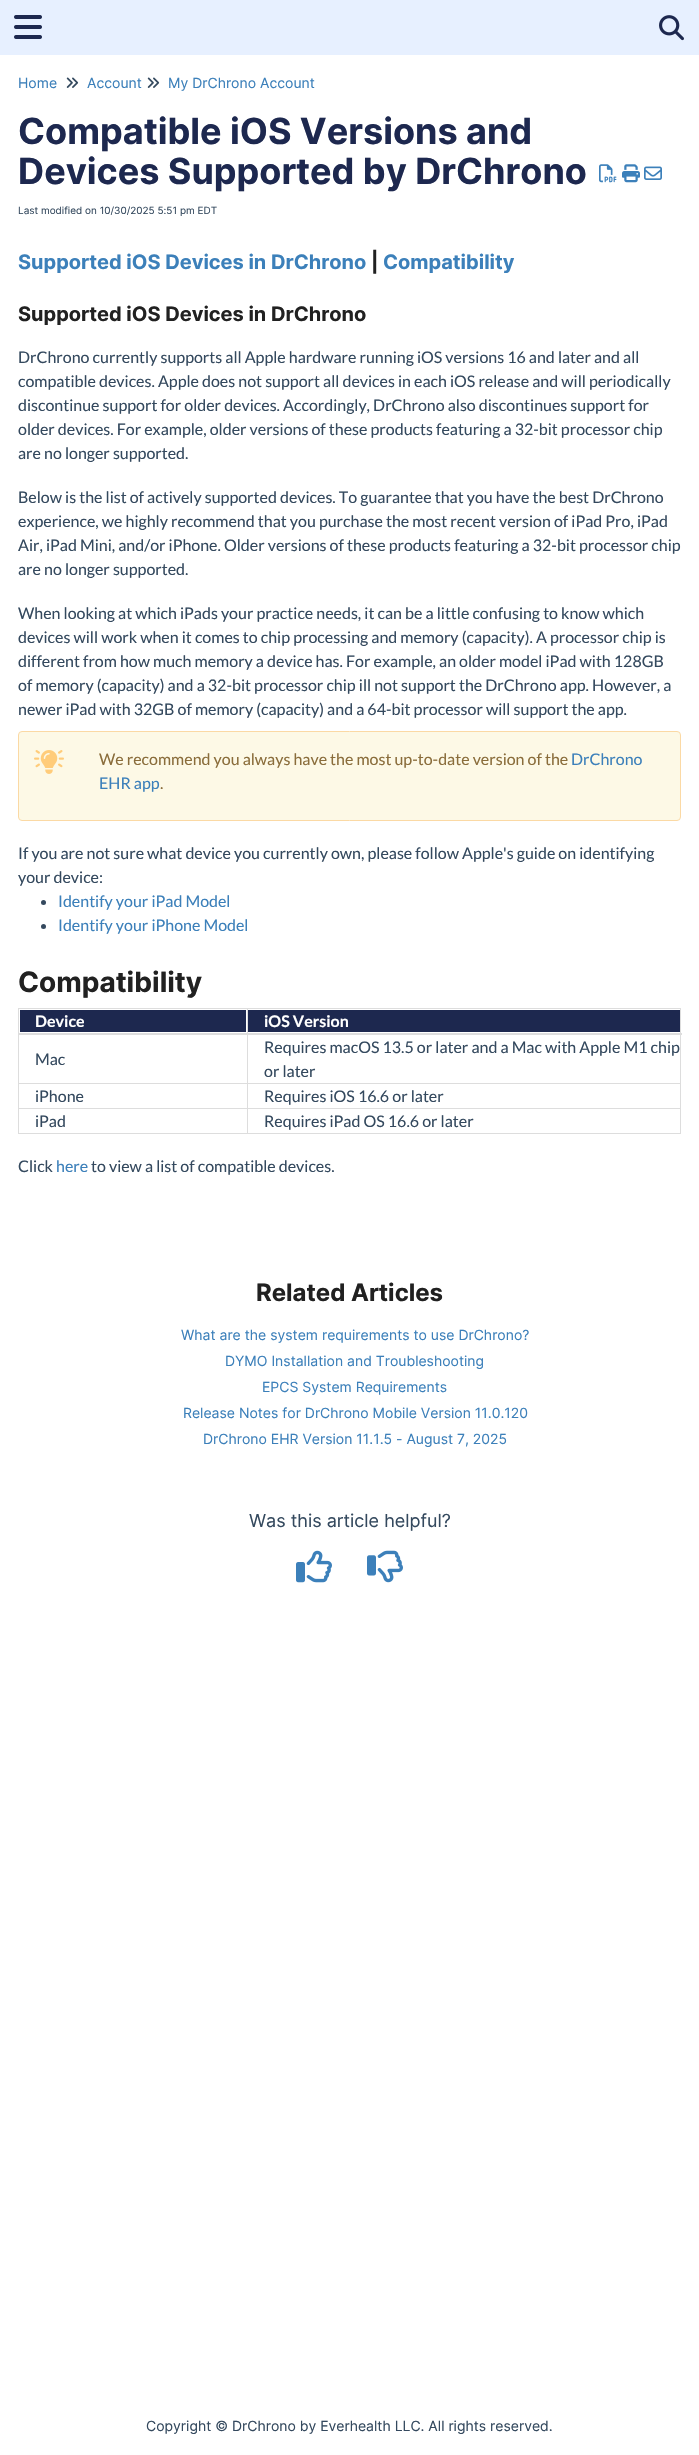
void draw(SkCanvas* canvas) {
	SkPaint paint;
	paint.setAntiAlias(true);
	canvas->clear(0xffffffff);
	paint.setColor(0xffe7f0ff);
	canvas->drawRect(SkRect::MakeXYWH(0, 0, 699, 55), paint);
	canvas->drawImageRect(SkImages::DeferredFromEncodedData(SkData::MakeFromFileName("img1.png")), SkRect::MakeXYWH(14, 15, 28, 24), SkSamplingOptions());
	canvas->drawImageRect(SkImages::DeferredFromEncodedData(SkData::MakeFromFileName("img2.png")), SkRect::MakeXYWH(659, 15, 25, 26), SkSamplingOptions());
	SkFont f1(fontMgr->matchFamilyStyle("Inter", SkFontStyle::Normal()), 14);
	f1.setSubpixel(true);
	paint.setColor(0xff3c80ba);
	canvas->drawString("Home", 18, 88, f1, paint);
	canvas->drawImageRect(SkImages::DeferredFromEncodedData(SkData::MakeFromFileName("img3.png")), SkRect::MakeXYWH(66, 77, 13, 11), SkSamplingOptions());
	canvas->drawString("Account", 87, 88, f1, paint);
	canvas->drawImageRect(SkImages::DeferredFromEncodedData(SkData::MakeFromFileName("img3.png")), SkRect::MakeXYWH(147, 77, 13, 11), SkSamplingOptions());
	canvas->drawString("My DrChrono Account", 168, 88, f1, paint);
	SkFont f2(fontMgr->matchFamilyStyle("Inter", SkFontStyle::Bold()), 36);
	f2.setSubpixel(true);
	paint.setColor(0xff1d284f);
	canvas->drawString("Compatible iOS Versions and", 18, 144, f2, paint);
	canvas->drawString("Devices Supported by DrChrono", 18, 184, f2, paint);
	canvas->drawImageRect(SkImages::DeferredFromEncodedData(SkData::MakeFromFileName("img4.png")), SkRect::MakeXYWH(599, 164, 18, 19), SkSamplingOptions());
	canvas->drawImageRect(SkImages::DeferredFromEncodedData(SkData::MakeFromFileName("img5.png")), SkRect::MakeXYWH(622, 164, 18, 19), SkSamplingOptions());
	canvas->drawImageRect(SkImages::DeferredFromEncodedData(SkData::MakeFromFileName("img6.png")), SkRect::MakeXYWH(644, 166, 18, 14), SkSamplingOptions());
	SkFont f3(fontMgr->matchFamilyStyle("Inter", SkFontStyle::Normal()), 10);
	f3.setSubpixel(true);
	paint.setColor(0xff34495e);
	canvas->drawString("Last modified on 10/30/2025 5:51 pm EDT", 18, 214, f3, paint);
	SkFont f4(fontMgr->matchFamilyStyle("Inter", SkFontStyle::Bold()), 20);
	f4.setSubpixel(true);
	paint.setColor(0xff3c80ba);
	canvas->drawString("Supported iOS Devices in DrChrono", 18, 269, f4, paint);
	paint.setColor(0xff212121);
	canvas->drawString("|", 371, 269, f4, paint);
	paint.setColor(0xff3c80ba);
	canvas->drawString("Compatibility", 383, 269, f4, paint);
	paint.setColor(0xff212121);
	canvas->drawString("Supported iOS Devices in DrChrono", 18, 321, f4, paint);
	SkFont f5(fontMgr->matchFamilyStyle("Lato", SkFontStyle::Normal()), 16);
	f5.setSubpixel(true);
	paint.setColor(0xff34495e);
	canvas->drawString("DrChrono currently supports all Apple hardware running iOS versions 16 and later and all", 18, 363, f5, paint);
	canvas->drawString("compatible devices. Apple does not support all devices in each iOS release and will periodically", 18, 387, f5, paint);
	canvas->drawString("discontinue support for older devices. Accordingly, DrChrono also discontinues support for", 18, 411, f5, paint);
	canvas->drawString("older devices. For example, older versions of these products featuring a 32-bit processor chip", 18, 435, f5, paint);
	canvas->drawString("are no longer supported.", 18, 459, f5, paint);
	canvas->drawString("Below is the list of actively supported devices. To guarantee that you have the best DrChrono", 18, 503, f5, paint);
	canvas->drawString("experience, we highly recommend that you purchase the most recent version of iPad Pro, iPad", 18, 527, f5, paint);
	canvas->drawString("Air, iPad Mini, and/or iPhone. Older versions of these products featuring a 32-bit processor chip", 18, 551, f5, paint);
	canvas->drawString("are no longer supported.", 18, 575, f5, paint);
	canvas->drawString("When looking at which iPads your practice needs, it can be a little confusing to know which", 18, 619, f5, paint);
	canvas->drawString("devices will work when it comes to chip processing and memory (capacity). A processor chip is", 18, 643, f5, paint);
	canvas->drawString("different from how much memory a device has. For example, an older model iPad with 128GB", 18, 667, f5, paint);
	canvas->drawString("of memory (capacity) and a 32-bit processor chip ill not support the DrChrono app. However, a", 18, 691, f5, paint);
	canvas->drawString("newer iPad with 32GB of memory (capacity) and a 64-bit processor will support the app.", 18, 715, f5, paint);
	paint.setColor(0xfffdf9e6);
	canvas->drawRoundRect(SkRect::MakeXYWH(18.5, 731.5, 662, 89), 3.5, 3.5, paint);
	paint.setStroke(true);
	paint.setStrokeWidth(1);
	paint.setColor(0xfffbd9a4);
	canvas->drawRoundRect(SkRect::MakeXYWH(18.5, 731.5, 662, 89), 3.5, 3.5, paint);
	canvas->drawImageRect(SkImages::DeferredFromEncodedData(SkData::MakeFromFileName("img7.png")), SkRect::MakeXYWH(34, 750, 30, 24), SkSamplingOptions());
	paint.setStroke(false);
	paint.setColor(0xff8a6d3b);
	canvas->drawString("We recommend you always have the most up-to-date version of the", 99, 765, f5, paint);
	paint.setColor(0xff3c80ba);
	canvas->drawString("DrChrono", 571, 765, f5, paint);
	canvas->drawString("EHR app", 99, 789, f5, paint);
	paint.setColor(0xff8a6d3b);
	canvas->drawString(".", 160, 789, f5, paint);
	paint.setColor(0xff34495e);
	canvas->drawString("If you are not sure what device you currently own, please follow Apple's guide on identifying", 18, 859, f5, paint);
	canvas->drawString("your device:", 18, 883, f5, paint);
	canvas->drawCircle(43.5, 902.5, 2.5, paint);
	paint.setColor(0xff3c80ba);
	canvas->drawString("Identify your iPad Model", 58, 907, f5, paint);
	paint.setColor(0xff34495e);
	canvas->drawCircle(43.5, 926.5, 2.5, paint);
	paint.setColor(0xff3c80ba);
	canvas->drawString("Identify your iPhone Model", 58, 931, f5, paint);
	SkFont f6(fontMgr->matchFamilyStyle("Inter", SkFontStyle::Bold()), 28);
	f6.setSubpixel(true);
	paint.setColor(0xff212121);
	canvas->drawString("Compatibility", 18, 992, f6, paint);
	paint.setColor(0xffdddddd);
	canvas->drawRect(SkRect::MakeXYWH(18, 1008, 663, 1), paint);
	canvas->drawRect(SkRect::MakeXYWH(680, 1008, 1, 126), paint);
	canvas->drawRect(SkRect::MakeXYWH(18, 1133, 663, 1), paint);
	canvas->drawRect(SkRect::MakeXYWH(18, 1008, 1, 126), paint);
	paint.setColor(0xff1d284f);
	canvas->drawRect(SkRect::MakeXYWH(20, 1010, 226, 22), paint);
	SkFont f7(fontMgr->matchFamilyStyle("Lato", SkFontStyle::Bold()), 16);
	f7.setSubpixel(true);
	paint.setColor(0xffffffff);
	canvas->drawString("Device", 35, 1027, f7, paint);
	paint.setColor(0xff1d284f);
	canvas->drawRect(SkRect::MakeXYWH(248, 1010, 432, 22), paint);
	paint.setColor(0xffdddddd);
	canvas->drawRect(SkRect::MakeXYWH(247, 1083, 434, 1), paint);
	canvas->drawRect(SkRect::MakeXYWH(247, 1108, 434, 1), paint);
	canvas->drawRect(SkRect::MakeXYWH(247, 1108, 1, 26), paint);
	canvas->drawRect(SkRect::MakeXYWH(18, 1108, 230, 1), paint);
	canvas->drawRect(SkRect::MakeXYWH(247, 1083, 1, 26), paint);
	canvas->drawRect(SkRect::MakeXYWH(18, 1083, 230, 1), paint);
	canvas->drawRect(SkRect::MakeXYWH(247, 1008, 1, 76), paint);
	canvas->drawRect(SkRect::MakeXYWH(18, 1033, 664, 2), paint);
	paint.setColor(0xffffffff);
	canvas->drawString("iOS Version", 264, 1027, f7, paint);
	paint.setColor(0xff34495e);
	canvas->drawString("Mac", 35, 1065, f5, paint);
	canvas->drawString("Requires macOS 13.5 or later and a Mac with Apple M1 chip", 264, 1053, f5, paint);
	canvas->drawString("or later", 264, 1077, f5, paint);
	canvas->drawString("iPhone", 35, 1102, f5, paint);
	canvas->drawString("Requires iOS 16.6 or later", 264, 1102, f5, paint);
	canvas->drawString("iPad", 35, 1127, f5, paint);
	canvas->drawString("Requires iPad OS 16.6 or later", 264, 1127, f5, paint);
	canvas->drawString("Click", 18, 1172, f5, paint);
	paint.setColor(0xff3c80ba);
	canvas->drawString("here", 56, 1172, f5, paint);
	paint.setColor(0xff34495e);
	canvas->drawString("to view a list of compatible devices.", 91, 1172, f5, paint);
	SkFont f8(fontMgr->matchFamilyStyle("Inter", SkFontStyle::Bold()), 24);
	f8.setSubpixel(true);
	paint.setColor(0xff212121);
	canvas->drawString("Related Articles", 256, 1301, f8, paint);
	paint.setColor(0xff3c80ba);
	canvas->drawString("What are the system requirements to use DrChrono?", 181, 1340, f1, paint);
	canvas->drawString("DYMO Installation and Troubleshooting", 225, 1366, f1, paint);
	canvas->drawString("EPCS System Requirements", 262, 1392, f1, paint);
	canvas->drawString("Release Notes for DrChrono Mobile Version 11.0.120", 183, 1418, f1, paint);
	canvas->drawString("DrChrono EHR Version 11.1.5 - August 7, 2025", 203, 1444, f1, paint);
	SkFont f9(fontMgr->matchFamilyStyle("Inter", SkFontStyle::Normal()), 18);
	f9.setSubpixel(true);
	paint.setColor(0xff34495e);
	canvas->drawString("Was this article helpful?", 249, 1527, f9, paint);
	canvas->drawImageRect(SkImages::DeferredFromEncodedData(SkData::MakeFromFileName("img8.png")), SkRect::MakeXYWH(296, 1550, 36, 33), SkSamplingOptions());
	canvas->drawImageRect(SkImages::DeferredFromEncodedData(SkData::MakeFromFileName("img9.png")), SkRect::MakeXYWH(367, 1550, 36, 33), SkSamplingOptions());
	canvas->drawString("Copyright © DrChrono by Everhealth LLC. All rights reserved.", 146, 2431, f1, paint);
}
